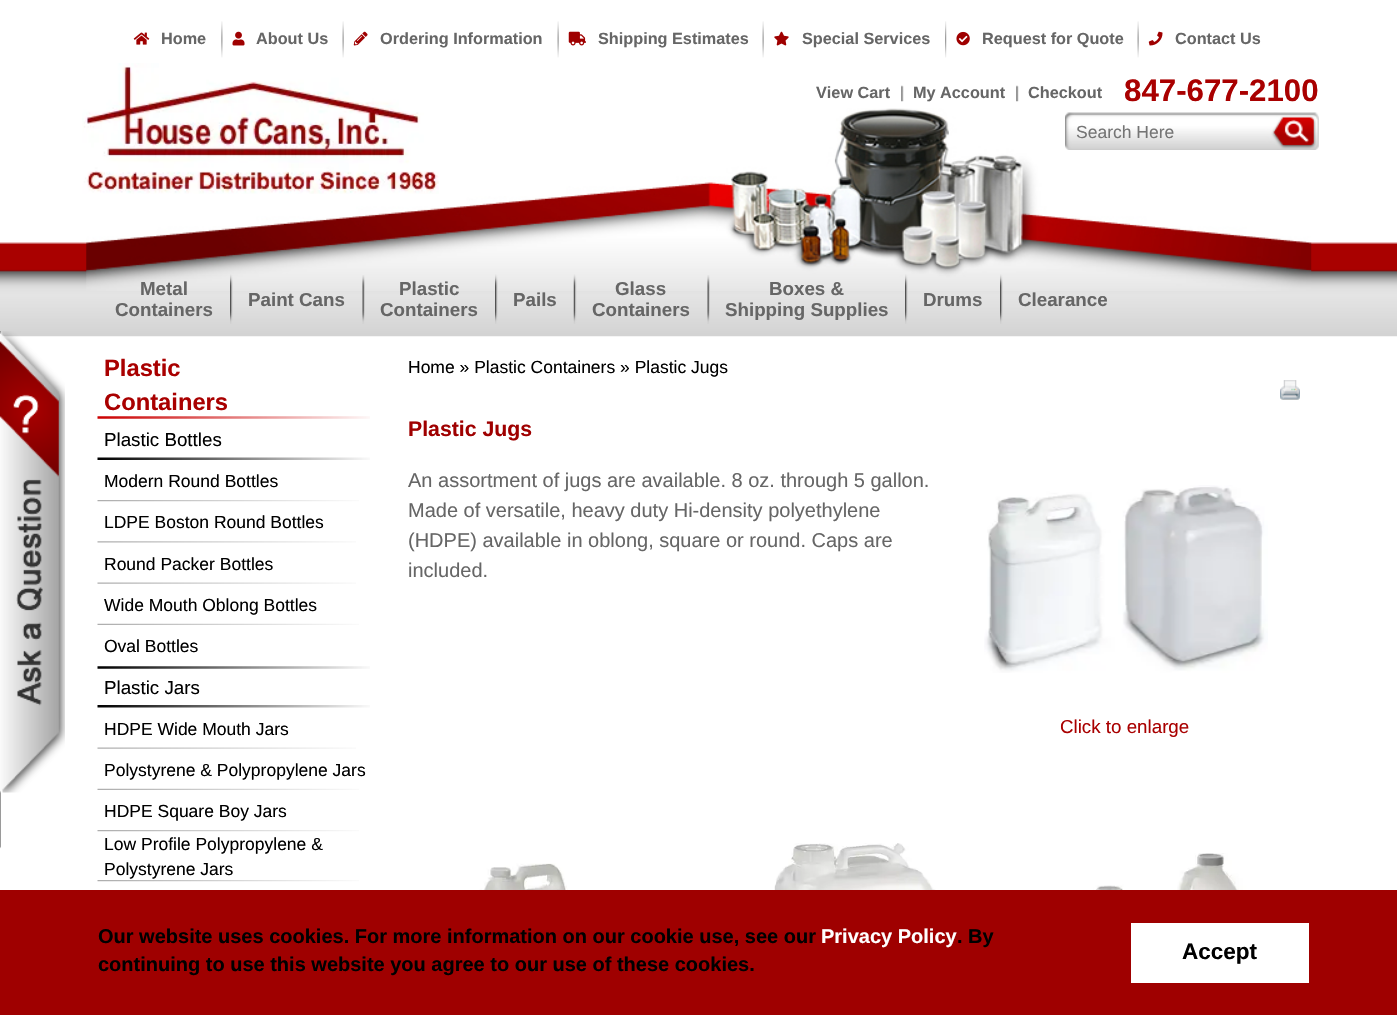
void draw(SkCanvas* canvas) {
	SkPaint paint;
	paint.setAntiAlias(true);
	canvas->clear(0xffffffff);
	canvas->drawImageRect(SkImages::DeferredFromEncodedData(SkData::MakeFromFileName("img1.png")), SkRect::MakeXYWH(0, 242, 1397, 95), SkSamplingOptions());
	canvas->drawImageRect(SkImages::DeferredFromEncodedData(SkData::MakeFromFileName("img2.png")), SkRect::MakeXYWH(0, 331, 1, 518), SkSamplingOptions());
	canvas->drawImageRect(SkImages::DeferredFromEncodedData(SkData::MakeFromFileName("img3.png")), SkRect::MakeXYWH(0, 331, 65, 462), SkSamplingOptions());
	canvas->drawImageRect(SkImages::DeferredFromEncodedData(SkData::MakeFromFileName("img4.png")), SkRect::MakeXYWH(86, 108, 1226, 183), SkSamplingOptions());
	canvas->drawImageRect(SkImages::DeferredFromEncodedData(SkData::MakeFromFileName("img5.png")), SkRect::MakeXYWH(133, 32, 17, 13), SkSamplingOptions());
	SkFont f1(fontMgr->matchFamilyStyle("Liberation Sans", SkFontStyle::Bold()), 16.25);
	f1.setSubpixel(true);
	paint.setColor(0xff666666);
	canvas->drawString("Home", 161, 44, f1, paint);
	canvas->drawImageRect(SkImages::DeferredFromEncodedData(SkData::MakeFromFileName("img6.png")), SkRect::MakeXYWH(221, 21, 2, 37), SkSamplingOptions());
	canvas->drawImageRect(SkImages::DeferredFromEncodedData(SkData::MakeFromFileName("img7.png")), SkRect::MakeXYWH(232, 31, 13, 15), SkSamplingOptions());
	canvas->drawString("About Us", 256, 44, f1, paint);
	canvas->drawImageRect(SkImages::DeferredFromEncodedData(SkData::MakeFromFileName("img8.png")), SkRect::MakeXYWH(342, 21, 2, 37), SkSamplingOptions());
	canvas->drawImageRect(SkImages::DeferredFromEncodedData(SkData::MakeFromFileName("img9.png")), SkRect::MakeXYWH(353, 31, 15, 15), SkSamplingOptions());
	canvas->drawString("Ordering Information", 380, 44, f1, paint);
	canvas->drawImageRect(SkImages::DeferredFromEncodedData(SkData::MakeFromFileName("img8.png")), SkRect::MakeXYWH(557, 21, 2, 37), SkSamplingOptions());
	canvas->drawImageRect(SkImages::DeferredFromEncodedData(SkData::MakeFromFileName("img10.png")), SkRect::MakeXYWH(568, 31, 18, 15), SkSamplingOptions());
	canvas->drawString("Shipping Estimates", 598, 44, f1, paint);
	canvas->drawImageRect(SkImages::DeferredFromEncodedData(SkData::MakeFromFileName("img8.png")), SkRect::MakeXYWH(762, 21, 2, 37), SkSamplingOptions());
	canvas->drawImageRect(SkImages::DeferredFromEncodedData(SkData::MakeFromFileName("img11.png")), SkRect::MakeXYWH(774, 31, 15, 15), SkSamplingOptions());
	canvas->drawString("Special Services", 802, 44, f1, paint);
	canvas->drawImageRect(SkImages::DeferredFromEncodedData(SkData::MakeFromFileName("img12.png")), SkRect::MakeXYWH(945, 21, 2, 37), SkSamplingOptions());
	canvas->drawImageRect(SkImages::DeferredFromEncodedData(SkData::MakeFromFileName("img13.png")), SkRect::MakeXYWH(956, 31, 14, 15), SkSamplingOptions());
	canvas->drawString("Request for Quote", 982, 44, f1, paint);
	canvas->drawImageRect(SkImages::DeferredFromEncodedData(SkData::MakeFromFileName("img8.png")), SkRect::MakeXYWH(1137, 21, 2, 37), SkSamplingOptions());
	canvas->drawImageRect(SkImages::DeferredFromEncodedData(SkData::MakeFromFileName("img14.png")), SkRect::MakeXYWH(1148, 31, 15, 15), SkSamplingOptions());
	canvas->drawString("Contact Us", 1175, 44, f1, paint);
	canvas->drawImageRect(SkImages::DeferredFromEncodedData(SkData::MakeFromFileName("img15.png")), SkRect::MakeXYWH(82, 63, 357, 131), SkSamplingOptions());
	canvas->drawString("View Cart", 816, 98, f1, paint);
	canvas->drawImageRect(SkImages::DeferredFromEncodedData(SkData::MakeFromFileName("img16.png")), SkRect::MakeXYWH(890, 85, 14, 17), SkSamplingOptions());
	canvas->drawString("My Account", 913, 98, f1, paint);
	canvas->drawImageRect(SkImages::DeferredFromEncodedData(SkData::MakeFromFileName("img17.png")), SkRect::MakeXYWH(1016, 85, 3, 17), SkSamplingOptions());
	canvas->drawString("Checkout", 1028, 98, f1, paint);
	SkFont f2(fontMgr->matchFamilyStyle("Liberation Sans", SkFontStyle::Bold()), 31.25);
	f2.setSubpixel(true);
	paint.setColor(0xffa90000);
	canvas->drawString("847-677-2100", 1124, 101, f2, paint);
	canvas->drawImageRect(SkImages::DeferredFromEncodedData(SkData::MakeFromFileName("img18.png")), SkRect::MakeXYWH(1065, 112, 254, 38), SkSamplingOptions());
	SkFont f3(fontMgr->matchFamilyStyle("Liberation Sans", SkFontStyle::Normal()), 17.5);
	f3.setSubpixel(true);
	paint.setColor(0xff757575);
	canvas->drawString("Search Here", 1076, 138, f3, paint);
	SkFont f4(fontMgr->matchFamilyStyle("Liberation Sans", SkFontStyle::Bold()), 18.75);
	f4.setSubpixel(true);
	paint.setColor(0xff666666);
	canvas->drawString("Metal", 140, 295, f4, paint);
	canvas->drawString("Containers", 115, 316, f4, paint);
	canvas->drawImageRect(SkImages::DeferredFromEncodedData(SkData::MakeFromFileName("img19.png")), SkRect::MakeXYWH(230, 274, 3, 50), SkSamplingOptions());
	canvas->drawString("Paint Cans", 248, 306, f4, paint);
	canvas->drawImageRect(SkImages::DeferredFromEncodedData(SkData::MakeFromFileName("img20.png")), SkRect::MakeXYWH(362, 275, 3, 49), SkSamplingOptions());
	canvas->drawString("Plastic", 399, 295, f4, paint);
	canvas->drawString("Containers", 380, 316, f4, paint);
	canvas->drawImageRect(SkImages::DeferredFromEncodedData(SkData::MakeFromFileName("img21.png")), SkRect::MakeXYWH(495, 274, 3, 50), SkSamplingOptions());
	canvas->drawString("Pails", 513, 306, f4, paint);
	canvas->drawImageRect(SkImages::DeferredFromEncodedData(SkData::MakeFromFileName("img22.png")), SkRect::MakeXYWH(573, 274, 4, 50), SkSamplingOptions());
	canvas->drawString("Glass", 615, 295, f4, paint);
	canvas->drawString("Containers", 592, 316, f4, paint);
	canvas->drawImageRect(SkImages::DeferredFromEncodedData(SkData::MakeFromFileName("img20.png")), SkRect::MakeXYWH(707, 275, 3, 49), SkSamplingOptions());
	canvas->drawString("Boxes &", 769, 295, f4, paint);
	canvas->drawString("Shipping Supplies", 725, 316, f4, paint);
	canvas->drawImageRect(SkImages::DeferredFromEncodedData(SkData::MakeFromFileName("img21.png")), SkRect::MakeXYWH(905, 274, 3, 50), SkSamplingOptions());
	canvas->drawString("Drums", 923, 306, f4, paint);
	canvas->drawImageRect(SkImages::DeferredFromEncodedData(SkData::MakeFromFileName("img21.png")), SkRect::MakeXYWH(1000, 274, 3, 50), SkSamplingOptions());
	canvas->drawString("Clearance", 1018, 306, f4, paint);
	canvas->drawImageRect(SkImages::DeferredFromEncodedData(SkData::MakeFromFileName("img23.png")), SkRect::MakeXYWH(97, 416, 273, 3), SkSamplingOptions());
	SkFont f5(fontMgr->matchFamilyStyle("Liberation Sans", SkFontStyle::Bold()), 23.75);
	f5.setSubpixel(true);
	paint.setColor(0xffa90000);
	canvas->drawString("Plastic", 104, 376, f5, paint);
	canvas->drawString("Containers", 104, 410, f5, paint);
	canvas->drawImageRect(SkImages::DeferredFromEncodedData(SkData::MakeFromFileName("img24.png")), SkRect::MakeXYWH(97, 457, 273, 3), SkSamplingOptions());
	SkFont f6(fontMgr->matchFamilyStyle("Liberation Sans", SkFontStyle::Normal()), 18.75);
	f6.setSubpixel(true);
	paint.setColor(0xff000000);
	canvas->drawString("Plastic Bottles", 104, 446, f6, paint);
	canvas->drawImageRect(SkImages::DeferredFromEncodedData(SkData::MakeFromFileName("img25.png")), SkRect::MakeXYWH(97, 500, 262, 2), SkSamplingOptions());
	canvas->drawString("Modern Round Bottles", 104, 487, f3, paint);
	canvas->drawImageRect(SkImages::DeferredFromEncodedData(SkData::MakeFromFileName("img26.png")), SkRect::MakeXYWH(97, 541, 259, 2), SkSamplingOptions());
	canvas->drawString("LDPE Boston Round Bottles", 104, 528, f3, paint);
	canvas->drawImageRect(SkImages::DeferredFromEncodedData(SkData::MakeFromFileName("img27.png")), SkRect::MakeXYWH(97, 582, 259, 2), SkSamplingOptions());
	canvas->drawString("Round Packer Bottles", 104, 570, f3, paint);
	canvas->drawImageRect(SkImages::DeferredFromEncodedData(SkData::MakeFromFileName("img28.png")), SkRect::MakeXYWH(97, 623, 262, 2), SkSamplingOptions());
	canvas->drawString("Wide Mouth Oblong Bottles", 104, 611, f3, paint);
	canvas->drawString("Oval Bottles", 104, 652, f3, paint);
	canvas->drawImageRect(SkImages::DeferredFromEncodedData(SkData::MakeFromFileName("img29.png")), SkRect::MakeXYWH(97, 666, 273, 42), SkSamplingOptions());
	canvas->drawString("Plastic Jars", 104, 694, f6, paint);
	canvas->drawImageRect(SkImages::DeferredFromEncodedData(SkData::MakeFromFileName("img27.png")), SkRect::MakeXYWH(97, 747, 259, 2), SkSamplingOptions());
	canvas->drawString("HDPE Wide Mouth Jars", 104, 735, f3, paint);
	canvas->drawImageRect(SkImages::DeferredFromEncodedData(SkData::MakeFromFileName("img28.png")), SkRect::MakeXYWH(97, 788, 262, 2), SkSamplingOptions());
	canvas->drawString("Polystyrene & Polypropylene Jars", 104, 776, f3, paint);
	canvas->drawImageRect(SkImages::DeferredFromEncodedData(SkData::MakeFromFileName("img25.png")), SkRect::MakeXYWH(97, 830, 262, 2), SkSamplingOptions());
	canvas->drawString("HDPE Square Boy Jars", 104, 817, f3, paint);
	canvas->drawImageRect(SkImages::DeferredFromEncodedData(SkData::MakeFromFileName("img25.png")), SkRect::MakeXYWH(97, 880, 262, 2), SkSamplingOptions());
	canvas->drawString("Low Profile Polypropylene &", 104, 850, f3, paint);
	canvas->drawString("Polystyrene Jars", 104, 875, f3, paint);
	canvas->drawString("Home » Plastic Containers » Plastic Jugs", 408, 373, f3, paint);
	canvas->drawImageRect(SkImages::DeferredFromEncodedData(SkData::MakeFromFileName("img30.png")), SkRect::MakeXYWH(1280, 380, 20, 20), SkSamplingOptions());
	SkFont f7(fontMgr->matchFamilyStyle("Liberation Sans", SkFontStyle::Bold()), 21.25);
	f7.setSubpixel(true);
	paint.setColor(0xff9f0000);
	canvas->drawString("Plastic Jugs", 408, 436, f7, paint);
	SkFont f8(fontMgr->matchFamilyStyle("Liberation Sans", SkFontStyle::Normal()), 20);
	f8.setSubpixel(true);
	paint.setColor(0xff666666);
	canvas->drawString("An assortment of jugs are available. 8 oz. through 5 gallon.", 408, 487, f8, paint);
	canvas->drawString("Made of versatile, heavy duty Hi-density polyethylene", 408, 517, f8, paint);
	canvas->drawString("(HDPE) available in oblong, square or round. Caps are", 408, 547, f8, paint);
	canvas->drawString("included.", 408, 577, f8, paint);
	canvas->drawImageRect(SkImages::DeferredFromEncodedData(SkData::MakeFromFileName("img31.png")), SkRect::MakeXYWH(984, 485, 284, 188), SkSamplingOptions());
	paint.setColor(0xffa90000);
	canvas->drawString("Click to enlarge", 1060, 733, f6, paint);
	canvas->drawImageRect(SkImages::DeferredFromEncodedData(SkData::MakeFromFileName("img32.png")), SkRect::MakeXYWH(427, 863, 236, 27), SkSamplingOptions());
	canvas->drawImageRect(SkImages::DeferredFromEncodedData(SkData::MakeFromFileName("img33.png")), SkRect::MakeXYWH(774, 843, 162, 47), SkSamplingOptions());
	canvas->drawImageRect(SkImages::DeferredFromEncodedData(SkData::MakeFromFileName("img34.png")), SkRect::MakeXYWH(1069, 853, 191, 37), SkSamplingOptions());
	paint.setColor(0xff9f0000);
	canvas->drawRect(SkRect::MakeXYWH(0, 890, 1397, 125), paint);
	SkFont f9(fontMgr->matchFamilyStyle("Liberation Sans", SkFontStyle::Bold()), 20);
	f9.setSubpixel(true);
	paint.setColor(0xff000000);
	canvas->drawString("Our website uses cookies. For more information on our cookie use, see our", 98, 943, f9, paint);
	paint.setColor(0xffffffff);
	canvas->drawString("Privacy Policy", 821, 943, f9, paint);
	paint.setColor(0xff000000);
	canvas->drawString(". By", 957, 943, f9, paint);
	canvas->drawString("continuing to use this website you agree to our use of these cookies.", 98, 971, f9, paint);
	paint.setColor(0xffffffff);
	canvas->drawRect(SkRect::MakeXYWH(1131, 923, 178, 60), paint);
	SkFont f10(fontMgr->matchFamilyStyle("Liberation Sans", SkFontStyle::Bold()), 22.5);
	f10.setSubpixel(true);
	paint.setColor(0xff000000);
	canvas->drawString("Accept", 1182, 959, f10, paint);
}
